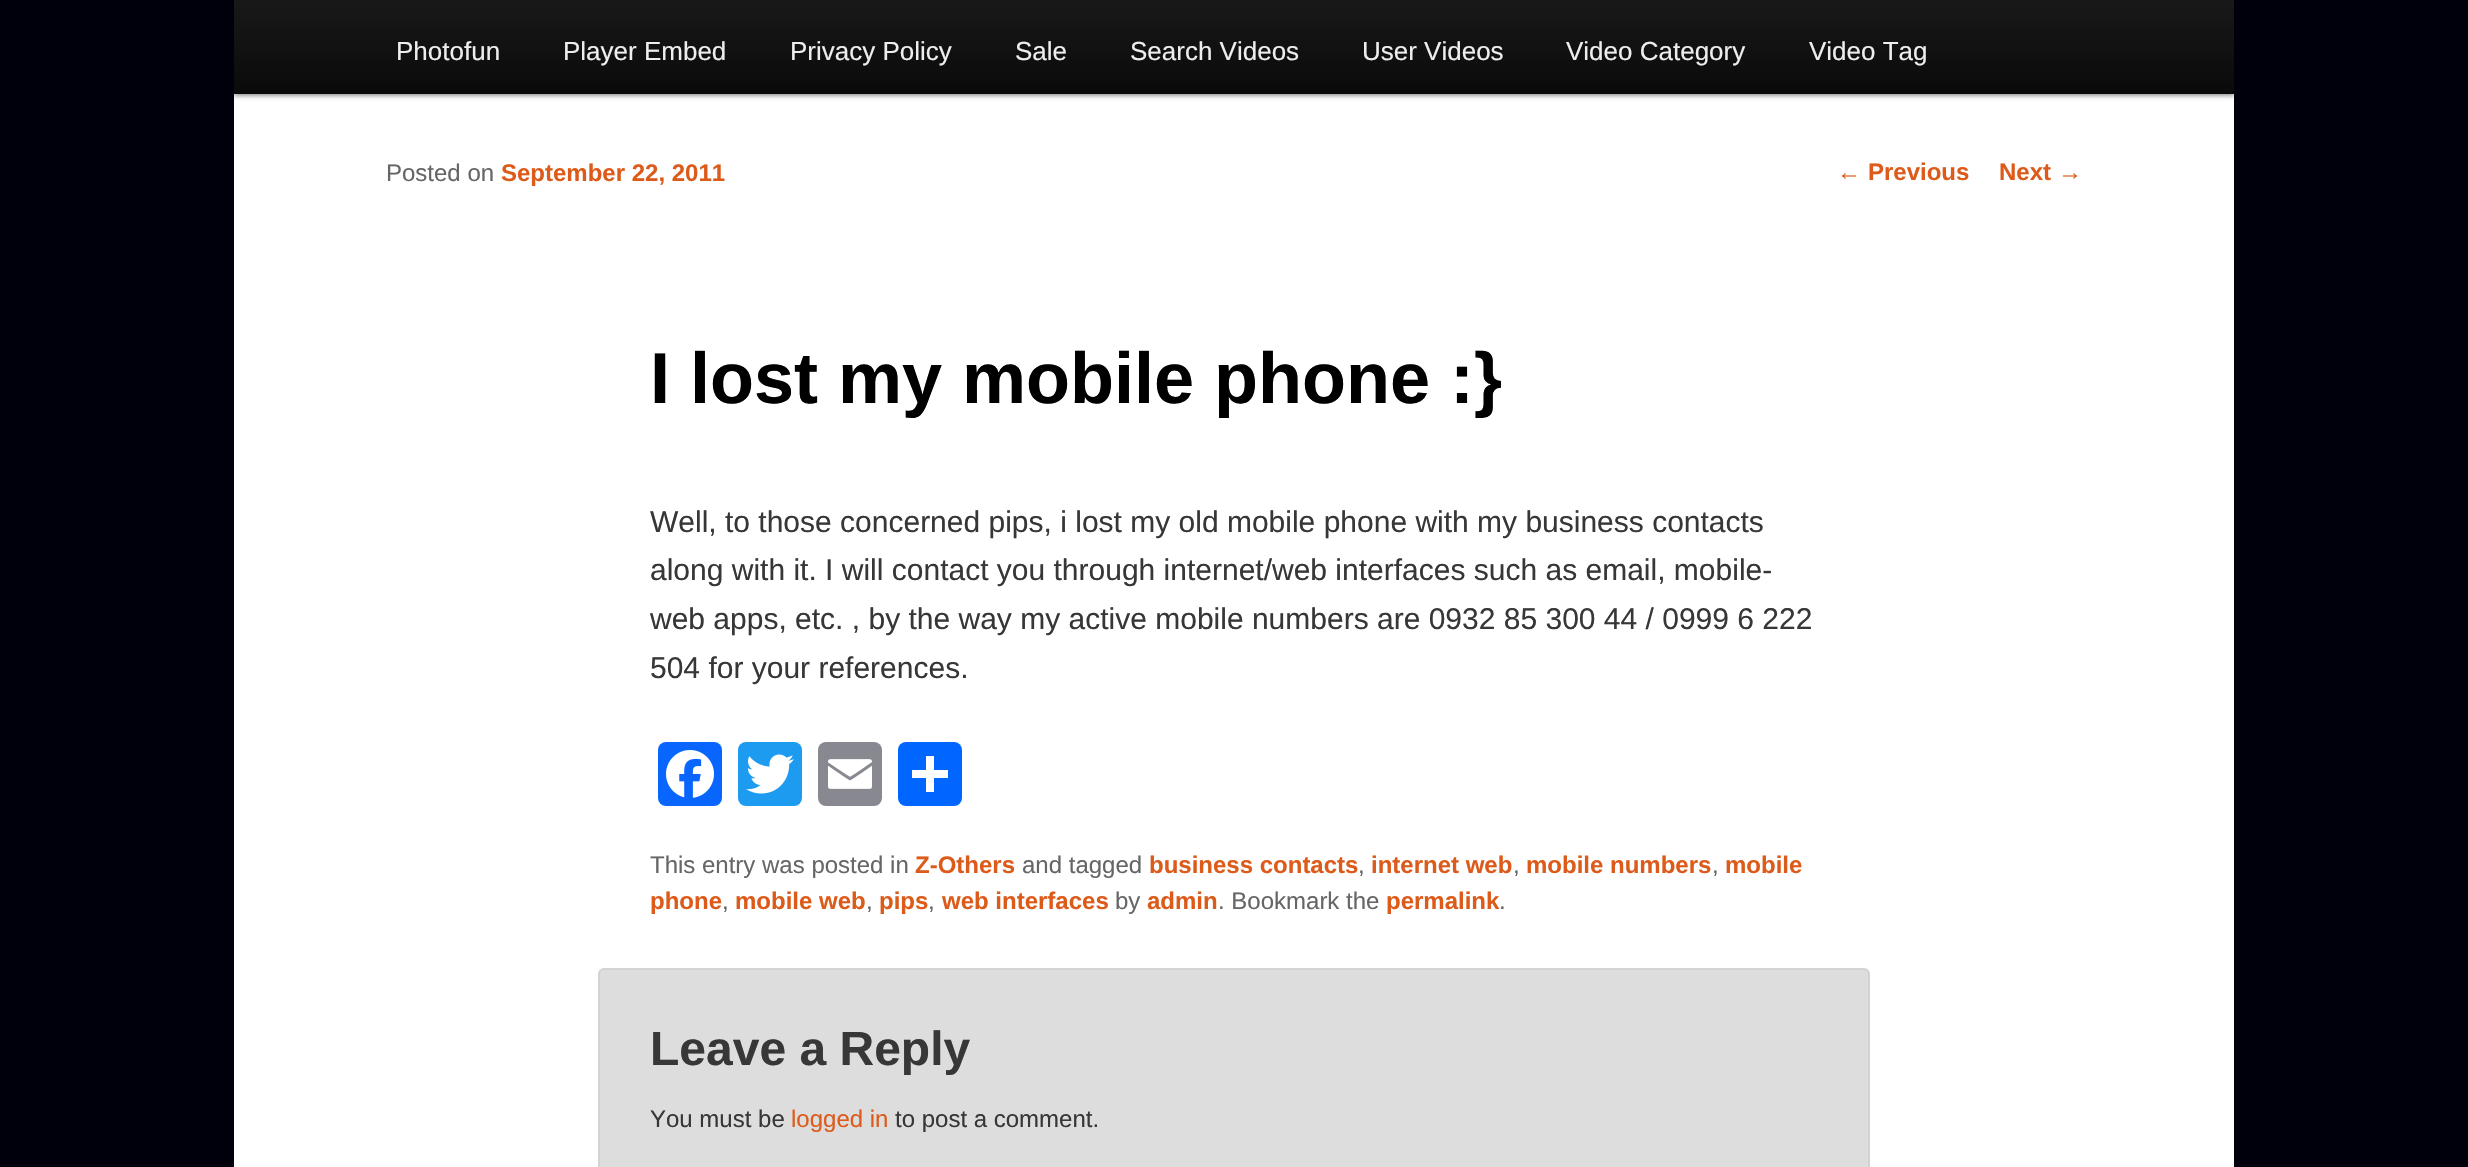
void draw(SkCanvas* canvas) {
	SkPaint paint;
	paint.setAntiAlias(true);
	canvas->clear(0xff00000c);
	paint.setColor(0xffffffff);
	canvas->drawRect(SkRect::MakeXYWH(234, 94, 2000, 1073), paint);
	paint.setColor(0x66000000);
	paint.setMaskFilter(SkMaskFilter::MakeBlur(kNormal_SkBlurStyle, 2));
	canvas->drawRect(SkRect::MakeXYWH(234, -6, 2000, 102), paint);
	paint.setMaskFilter(nullptr);
	{
		const SkColor colors[] = {0xff252525, 0xff0a0a0a};
		const float stops[] = {0, 1};
		const SkPoint ends[] = {{1234, -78}, {1234, 94}};
		paint.setShader(SkGradientShader::MakeLinear(ends, colors, stops, 2, SkTileMode::kClamp));
		paint.setAlpha(255);
	}
	canvas->drawRect(SkRect::MakeXYWH(234, 0, 2000, 94), paint);
	SkFont f1(fontMgr->matchFamilyStyle("Liberation Sans", SkFontStyle::Normal()), 26);
	f1.setSubpixel(true);
	paint.setShader(nullptr);
	paint.setColor(0xffeeeeee);
	canvas->drawString("Photofun", 396, 60, f1, paint);
	canvas->drawString("Player Embed", 563, 60, f1, paint);
	canvas->drawString("Privacy Policy", 790, 60, f1, paint);
	canvas->drawString("Sale", 1015, 60, f1, paint);
	canvas->drawString("Search Videos", 1130, 60, f1, paint);
	canvas->drawString("User Videos", 1362, 60, f1, paint);
	canvas->drawString("Video Category", 1566, 60, f1, paint);
	canvas->drawString("Video Tag", 1809, 60, f1, paint);
	SkFont f2(fontMgr->matchFamilyStyle("Liberation Sans", SkFontStyle::Normal()), 24);
	f2.setSubpixel(true);
	paint.setColor(0xff666666);
	canvas->drawString("Posted on", 386, 181, f2, paint);
	SkFont f3(fontMgr->matchFamilyStyle("Liberation Sans", SkFontStyle::Bold()), 24);
	f3.setSubpixel(true);
	paint.setColor(0xffdd5b1a);
	canvas->drawString("September 22, 2011", 501, 181, f3, paint);
	SkFont f4(fontMgr->matchFamilyStyle("Liberation Sans", SkFontStyle::Bold()), 72);
	f4.setSubpixel(true);
	paint.setColor(0xff000000);
	canvas->drawString("I lost my mobile phone :}", 650, 403, f4, paint);
	SkFont f5(fontMgr->matchFamilyStyle("Liberation Sans", SkFontStyle::Normal()), 30);
	f5.setSubpixel(true);
	paint.setColor(0xff373737);
	canvas->drawString("Well, to those concerned pips, i lost my old mobile phone with my business contacts", 650, 532, f5, paint);
	canvas->drawString("along with it. I will contact you through internet/web interfaces such as email, mobile-", 650, 580, f5, paint);
	canvas->drawString("web apps, etc. , by the way my active mobile numbers are 0932 85 300 44 / 0999 6 222", 650, 629, f5, paint);
	canvas->drawString("504 for your references.", 650, 678, f5, paint);
	paint.setColor(0xff0866ff);
	canvas->drawRoundRect(SkRect::MakeXYWH(658, 742, 64, 64), 8, 8, paint);
	canvas->drawImageRect(SkImages::DeferredFromEncodedData(SkData::MakeFromFileName("img1.png")), SkRect::MakeXYWH(666, 750, 48, 48), SkSamplingOptions());
	paint.setColor(0xff1d9bf0);
	canvas->drawRoundRect(SkRect::MakeXYWH(738, 742, 64, 64), 8, 8, paint);
	canvas->drawImageRect(SkImages::DeferredFromEncodedData(SkData::MakeFromFileName("img2.png")), SkRect::MakeXYWH(746, 754, 48, 40), SkSamplingOptions());
	paint.setColor(0xff888990);
	canvas->drawRoundRect(SkRect::MakeXYWH(818, 742, 64, 64), 8, 8, paint);
	canvas->drawImageRect(SkImages::DeferredFromEncodedData(SkData::MakeFromFileName("img3.png")), SkRect::MakeXYWH(828, 759, 44, 30), SkSamplingOptions());
	paint.setColor(0xff0166ff);
	canvas->drawRoundRect(SkRect::MakeXYWH(898, 742, 64, 64), 8, 8, paint);
	paint.setColor(0xffffffff);
	canvas->drawRect(SkRect::MakeXYWH(926, 756, 8, 36), paint);
	canvas->drawRect(SkRect::MakeXYWH(912, 770, 36, 8), paint);
	paint.setColor(0xff666666);
	canvas->drawString("This entry was posted in", 650, 873, f2, paint);
	paint.setColor(0xffdd5b1a);
	canvas->drawString("Z-Others", 915, 873, f3, paint);
	paint.setColor(0xff666666);
	canvas->drawString("and tagged", 1022, 873, f2, paint);
	paint.setColor(0xffdd5b1a);
	canvas->drawString("business contacts", 1149, 873, f3, paint);
	paint.setColor(0xff666666);
	canvas->drawString(",", 1358, 873, f2, paint);
	paint.setColor(0xffdd5b1a);
	canvas->drawString("internet web", 1371, 873, f3, paint);
	paint.setColor(0xff666666);
	canvas->drawString(",", 1513, 873, f2, paint);
	paint.setColor(0xffdd5b1a);
	canvas->drawString("mobile numbers", 1526, 873, f3, paint);
	paint.setColor(0xff666666);
	canvas->drawString(",", 1712, 873, f2, paint);
	paint.setColor(0xffdd5b1a);
	canvas->drawString("mobile", 1725, 873, f3, paint);
	canvas->drawString("phone", 650, 909, f3, paint);
	paint.setColor(0xff666666);
	canvas->drawString(",", 722, 909, f2, paint);
	paint.setColor(0xffdd5b1a);
	canvas->drawString("mobile web", 735, 909, f3, paint);
	paint.setColor(0xff666666);
	canvas->drawString(",", 866, 909, f2, paint);
	paint.setColor(0xffdd5b1a);
	canvas->drawString("pips", 879, 909, f3, paint);
	paint.setColor(0xff666666);
	canvas->drawString(",", 928, 909, f2, paint);
	paint.setColor(0xffdd5b1a);
	canvas->drawString("web interfaces", 942, 909, f3, paint);
	paint.setColor(0xff666666);
	canvas->drawString("by", 1115, 909, f2, paint);
	paint.setColor(0xffdd5b1a);
	canvas->drawString("admin", 1147, 909, f3, paint);
	paint.setColor(0xff666666);
	canvas->drawString(". Bookmark the", 1218, 909, f2, paint);
	paint.setColor(0xffdd5b1a);
	canvas->drawString("permalink", 1386, 909, f3, paint);
	paint.setColor(0xff666666);
	canvas->drawString(".", 1499, 909, f2, paint);
	paint.setColor(0xffdd5b1a);
	canvas->drawString("←", 1837, 180, f2, paint);
	canvas->drawString("Previous", 1868, 180, f3, paint);
	canvas->drawString("Next", 1999, 180, f3, paint);
	canvas->drawString("→", 2058, 180, f2, paint);
	paint.setColor(0xffdddddd);
	canvas->drawRoundRect(SkRect::MakeXYWH(599, 969, 1270, 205), 5, 5, paint);
	paint.setStroke(true);
	paint.setStrokeWidth(2);
	paint.setColor(0xffd3d3d3);
	canvas->drawRoundRect(SkRect::MakeXYWH(599, 969, 1270, 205), 5, 5, paint);
	SkFont f6(fontMgr->matchFamilyStyle("Liberation Sans", SkFontStyle::Bold()), 48);
	f6.setSubpixel(true);
	paint.setStroke(false);
	paint.setColor(0xff373737);
	canvas->drawString("Leave a Reply", 650, 1065, f6, paint);
	canvas->drawString("You must be", 650, 1127, f2, paint);
	paint.setColor(0xffdd5b1a);
	canvas->drawString("logged in", 791, 1127, f2, paint);
	paint.setColor(0xff373737);
	canvas->drawString("to post a comment.", 895, 1127, f2, paint);
}
